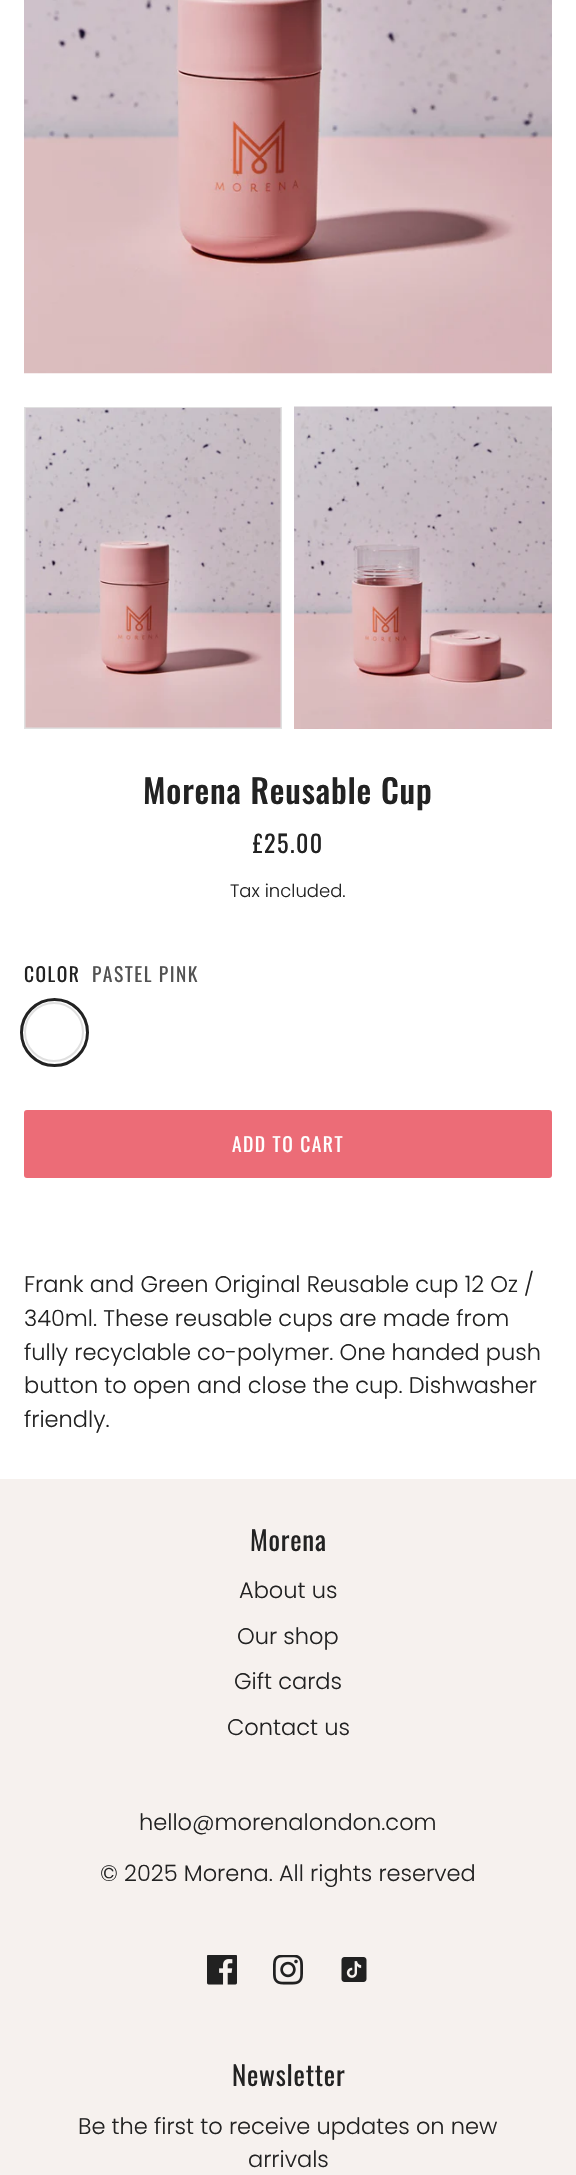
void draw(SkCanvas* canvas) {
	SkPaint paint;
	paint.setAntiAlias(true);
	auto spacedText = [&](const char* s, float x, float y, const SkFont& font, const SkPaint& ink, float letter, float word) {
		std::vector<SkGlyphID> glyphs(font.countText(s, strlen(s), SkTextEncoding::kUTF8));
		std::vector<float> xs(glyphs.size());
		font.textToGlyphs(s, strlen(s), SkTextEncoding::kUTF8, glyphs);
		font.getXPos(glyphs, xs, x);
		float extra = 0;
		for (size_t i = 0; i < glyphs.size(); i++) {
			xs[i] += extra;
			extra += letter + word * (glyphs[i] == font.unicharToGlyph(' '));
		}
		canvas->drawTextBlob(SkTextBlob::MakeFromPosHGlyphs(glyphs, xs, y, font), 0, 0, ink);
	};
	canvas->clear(0xffffffff);
	canvas->drawImageRect(SkImages::DeferredFromEncodedData(SkData::MakeFromFileName("img1.png")), SkRect::MakeXYWH(24, 0, 528, 374), SkSamplingOptions());
	paint.setStroke(true);
	paint.setStrokeWidth(2);
	paint.setColor(0xffe0e0e0);
	canvas->drawRect(SkRect::MakeXYWH(25, 408, 256, 320), paint);
	canvas->drawImageRect(SkImages::DeferredFromEncodedData(SkData::MakeFromFileName("img2.png")), SkRect::MakeXYWH(25, 408, 256, 320), SkSamplingOptions());
	canvas->drawImageRect(SkImages::DeferredFromEncodedData(SkData::MakeFromFileName("img3.png")), SkRect::MakeXYWH(294, 406, 258, 323), SkSamplingOptions());
	SkFont f1(fontMgr->matchFamilyStyle("Oswald", SkFontStyle(500, SkFontStyle::kNormal_Width, SkFontStyle::kUpright_Slant)), 33);
	f1.setSubpixel(true);
	paint.setStroke(false);
	paint.setColor(0xff222222);
	spacedText("Morena Reusable Cup", 143, 804, f1, paint, 0.8, 0);
	SkFont f2(fontMgr->matchFamilyStyle("Oswald", SkFontStyle::Normal()), 24);
	f2.setSubpixel(true);
	spacedText("£25.00", 253, 853, f2, paint, 1.5, 0);
	SkFont f3(fontMgr->matchFamilyStyle("Poppins", SkFontStyle(300, SkFontStyle::kNormal_Width, SkFontStyle::kUpright_Slant)), 18);
	f3.setSubpixel(true);
	canvas->drawString("Tax included.", 230, 897, f3, paint);
	SkFont f4(fontMgr->matchFamilyStyle("Oswald", SkFontStyle::Normal()), 19.5);
	f4.setSubpixel(true);
	spacedText("COLOR", 24, 982, f4, paint, 1.5, 0);
	paint.setColor(0xff525252);
	spacedText("PASTEL PINK", 92, 982, f4, paint, 1.5, 0);
	paint.setStroke(true);
	paint.setColor(0xffe0e0e0);
	canvas->drawCircle(54, 1032, 29, paint);
	paint.setStrokeWidth(3);
	paint.setColor(0xff222222);
	canvas->drawCircle(54.5, 1032.5, 33, paint);
	paint.setStroke(false);
	paint.setColor(0xffec6c77);
	canvas->drawRoundRect(SkRect::MakeXYWH(24, 1110, 528, 68), 3, 3, paint);
	paint.setColor(0xffffffff);
	spacedText("ADD TO CART", 232, 1152, f4, paint, 1.5, 0);
	SkFont f5(fontMgr->matchFamilyStyle("Poppins", SkFontStyle(300, SkFontStyle::kNormal_Width, SkFontStyle::kUpright_Slant)), 22.5);
	f5.setSubpixel(true);
	paint.setColor(0xff222222);
	canvas->drawString("Frank and Green Original Reusable cup 12 Oz /", 24, 1292, f5, paint);
	canvas->drawString("340ml. These reusable cups are made from", 24, 1326, f5, paint);
	canvas->drawString("fully recyclable co-polymer. One handed push", 24, 1360, f5, paint);
	canvas->drawString("button to open and close the cup. Dishwasher", 24, 1393, f5, paint);
	canvas->drawString("friendly.", 24, 1427, f5, paint);
	paint.setColor(0xfff6f1ee);
	canvas->drawRect(SkRect::MakeXYWH(0, 1479, 576, 696), paint);
	SkFont f6(fontMgr->matchFamilyStyle("Oswald", SkFontStyle::Normal()), 27);
	f6.setSubpixel(true);
	paint.setColor(0xff222222);
	spacedText("Morena", 250, 1551, f6, paint, 0.75, 0);
	canvas->drawString("About us", 239, 1598, f5, paint);
	canvas->drawString("Our shop", 237, 1644, f5, paint);
	canvas->drawString("Gift cards", 234, 1689, f5, paint);
	canvas->drawString("Contact us", 227, 1735, f5, paint);
	canvas->drawString("hello@morenalondon.com", 139, 1830, f5, paint);
	canvas->drawString("© 2025 Morena. All rights reserved", 100, 1881, f5, paint);
	canvas->drawImageRect(SkImages::DeferredFromEncodedData(SkData::MakeFromFileName("img4.png")), SkRect::MakeXYWH(207, 1955, 30, 30), SkSamplingOptions());
	canvas->drawImageRect(SkImages::DeferredFromEncodedData(SkData::MakeFromFileName("img5.png")), SkRect::MakeXYWH(273, 1955, 30, 30), SkSamplingOptions());
	canvas->drawImageRect(SkImages::DeferredFromEncodedData(SkData::MakeFromFileName("img6.png")), SkRect::MakeXYWH(341, 1957, 26, 25), SkSamplingOptions());
	spacedText("Newsletter", 232, 2086, f6, paint, 0.75, 0);
	canvas->drawString("Be the first to receive updates on new", 78, 2134, f5, paint);
	canvas->drawString("arrivals", 248, 2167, f5, paint);
}
